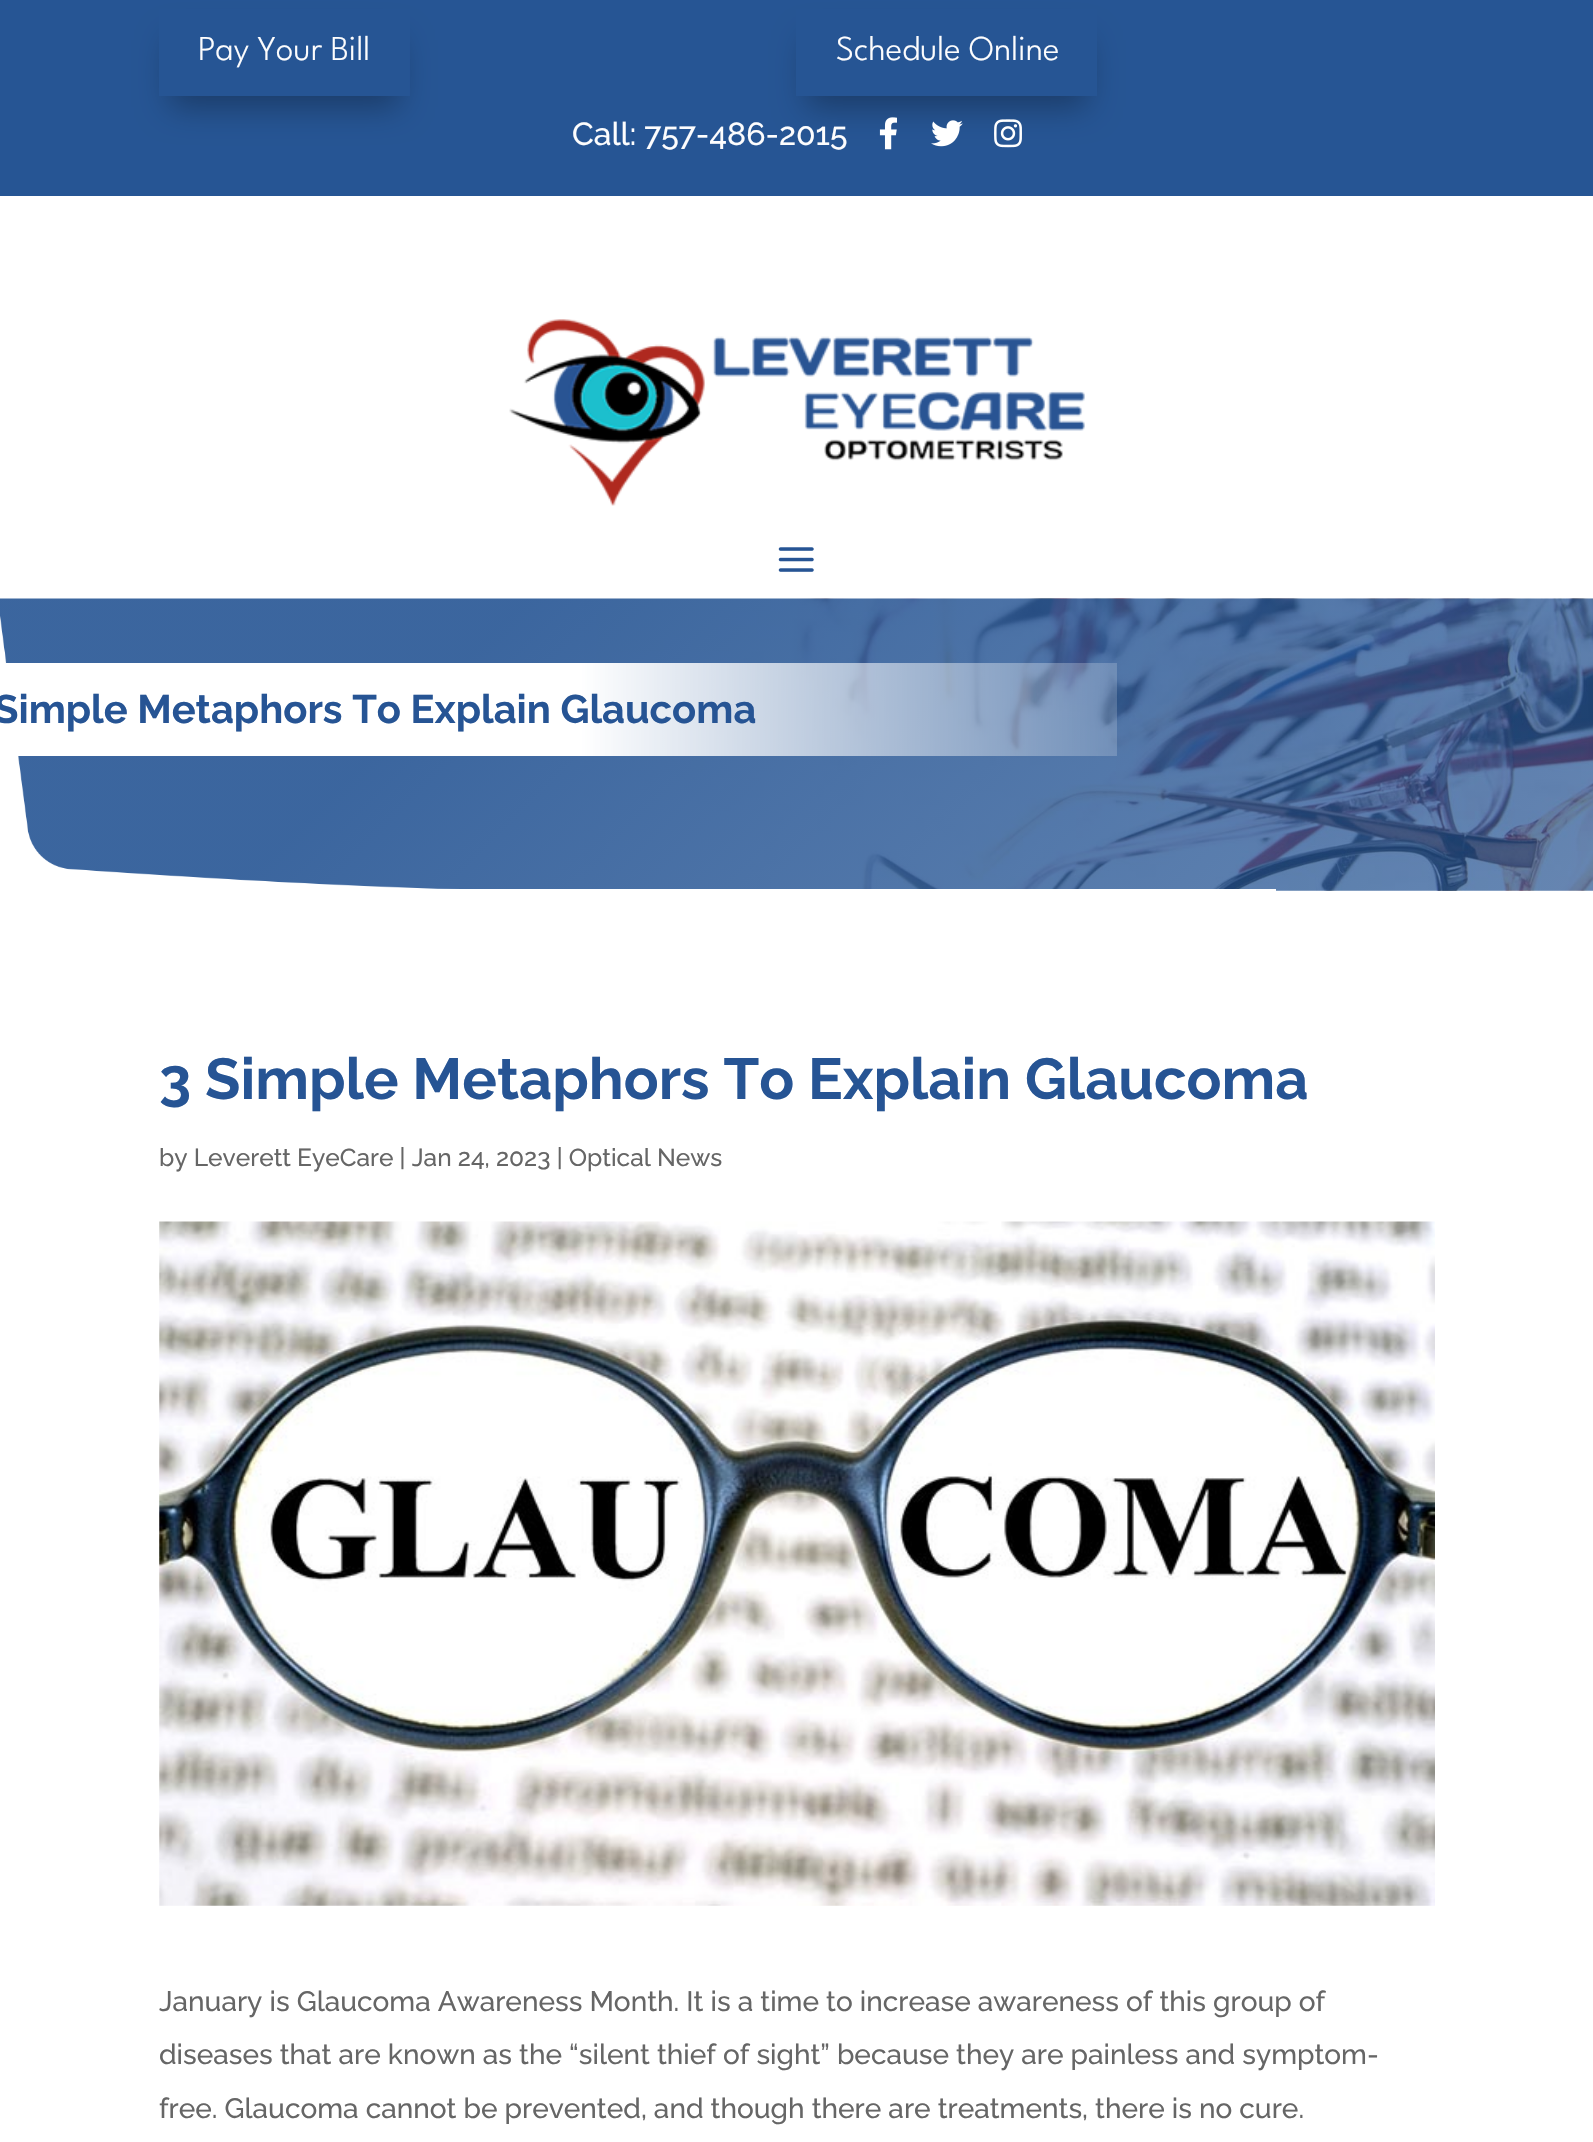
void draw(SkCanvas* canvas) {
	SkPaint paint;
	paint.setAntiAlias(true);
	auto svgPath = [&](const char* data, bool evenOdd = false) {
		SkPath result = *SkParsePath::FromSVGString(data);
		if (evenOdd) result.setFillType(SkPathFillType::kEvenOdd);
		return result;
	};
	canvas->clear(0xffffffff);
	paint.setColor(0xff265594);
	canvas->drawRect(SkRect::MakeXYWH(0, 0, 1593, 196), paint);
	canvas->save();
	canvas->clipPath(svgPath("M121 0H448V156H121ZM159 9H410V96H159Z", true), true);
	paint.setColor(0x4d000000);
	paint.setMaskFilter(SkMaskFilter::MakeBlur(kNormal_SkBlurStyle, 16));
	canvas->drawRect(SkRect::MakeXYWH(170, 40, 229, 67), paint);
	paint.setMaskFilter(nullptr);
	canvas->restore();
	paint.setColor(0xcc265494);
	canvas->drawRect(SkRect::MakeXYWH(409, 43, 1, 53), paint);
	SkFont f1(fontMgr->matchFamilyStyle("League Spartan", SkFontStyle(300, SkFontStyle::kNormal_Width, SkFontStyle::kUpright_Slant)), 35);
	f1.setSubpixel(true);
	paint.setColor(0xfffdfdfe);
	canvas->drawString("Pay Your Bill", 198, 60, f1, paint);
	canvas->save();
	canvas->clipPath(svgPath("M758 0H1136V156H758ZM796 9H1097V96H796Z", true), true);
	paint.setColor(0x4d000000);
	paint.setMaskFilter(SkMaskFilter::MakeBlur(kNormal_SkBlurStyle, 16));
	canvas->drawRect(SkRect::MakeXYWH(807, 40, 280, 67), paint);
	paint.setMaskFilter(nullptr);
	canvas->restore();
	paint.setColor(0xfffdfdfe);
	canvas->drawString("Schedule Online", 836, 60, f1, paint);
	SkFont f2(fontMgr->matchFamilyStyle("Raleway", SkFontStyle(500, SkFontStyle::kNormal_Width, SkFontStyle::kUpright_Slant)), 31.9);
	f2.setSubpixel(true);
	canvas->drawString("Call: 757-486-2015", 572, 145, f2, paint);
	canvas->drawImageRect(SkImages::DeferredFromEncodedData(SkData::MakeFromFileName("img1.png")), SkRect::MakeXYWH(879, 117, 18, 33), SkSamplingOptions());
	canvas->drawImageRect(SkImages::DeferredFromEncodedData(SkData::MakeFromFileName("img2.png")), SkRect::MakeXYWH(931, 120, 32, 27), SkSamplingOptions());
	canvas->drawImageRect(SkImages::DeferredFromEncodedData(SkData::MakeFromFileName("img3.png")), SkRect::MakeXYWH(994, 119, 28, 29), SkSamplingOptions());
	canvas->drawImageRect(SkImages::DeferredFromEncodedData(SkData::MakeFromFileName("img4.png")), SkRect::MakeXYWH(509, 319, 576, 187), SkSamplingOptions());
	canvas->drawImageRect(SkImages::DeferredFromEncodedData(SkData::MakeFromFileName("img5.png")), SkRect::MakeXYWH(778, 547, 36, 25), SkSamplingOptions());
	canvas->drawImageRect(SkImages::DeferredFromEncodedData(SkData::MakeFromFileName("img6.png")), SkRect::MakeXYWH(0, 598, 1593, 293), SkSamplingOptions());
	canvas->drawImageRect(SkImages::DeferredFromEncodedData(SkData::MakeFromFileName("img7.png")), SkRect::MakeXYWH(0, 616, 459, 273), SkSamplingOptions());
	paint.setColor(0xffffffff);
	canvas->drawRect(SkRect::MakeXYWH(0, 889, 1276, 2), paint);
	{
		const SkColor colors[] = {0xffffffff, 0x2effffff};
		const float stops[] = {0.55, 1};
		const SkPoint ends[] = {{-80, 710}, {1117, 710}};
		paint.setShader(SkGradientShader::MakeLinear(ends, colors, stops, 2, SkTileMode::kClamp));
		paint.setAlpha(255);
	}
	canvas->drawRect(SkRect::MakeXYWH(6, 663, 1111, 93), paint);
	SkFont f3(fontMgr->matchFamilyStyle("Raleway", SkFontStyle::Bold()), 39.9);
	f3.setSubpixel(true);
	paint.setShader(nullptr);
	paint.setColor(0xff265494);
	canvas->drawString("Simple Metaphors To Explain Glaucoma", -6, 723, f3, paint);
	SkFont f4(fontMgr->matchFamilyStyle("Raleway", SkFontStyle::Bold()), 57.75);
	f4.setSubpixel(true);
	canvas->drawString("3 Simple Metaphors To Explain Glaucoma", 159, 1099, f4, paint);
	SkFont f5(fontMgr->matchFamilyStyle("Raleway", SkFontStyle(500, SkFontStyle::kNormal_Width, SkFontStyle::kUpright_Slant)), 24.5);
	f5.setSubpixel(true);
	paint.setColor(0xff666666);
	canvas->drawString("by Leverett EyeCare | Jan 24, 2023 | Optical News", 159, 1166, f5, paint);
	canvas->drawImageRect(SkImages::DeferredFromEncodedData(SkData::MakeFromFileName("img8.png")), SkRect::MakeXYWH(159, 1221, 1276, 685), SkSamplingOptions());
	SkFont f6(fontMgr->matchFamilyStyle("Raleway", SkFontStyle(500, SkFontStyle::kNormal_Width, SkFontStyle::kUpright_Slant)), 28);
	f6.setSubpixel(true);
	canvas->drawString("January is Glaucoma Awareness Month. It is a time to increase awareness of this group of", 159, 2011, f6, paint);
	canvas->drawString("diseases that are known as the “silent thief of sight” because they are painless and symptom-", 159, 2064, f6, paint);
	canvas->drawString("free. Glaucoma cannot be prevented, and though there are treatments, there is no cure.", 159, 2118, f6, paint);
}
